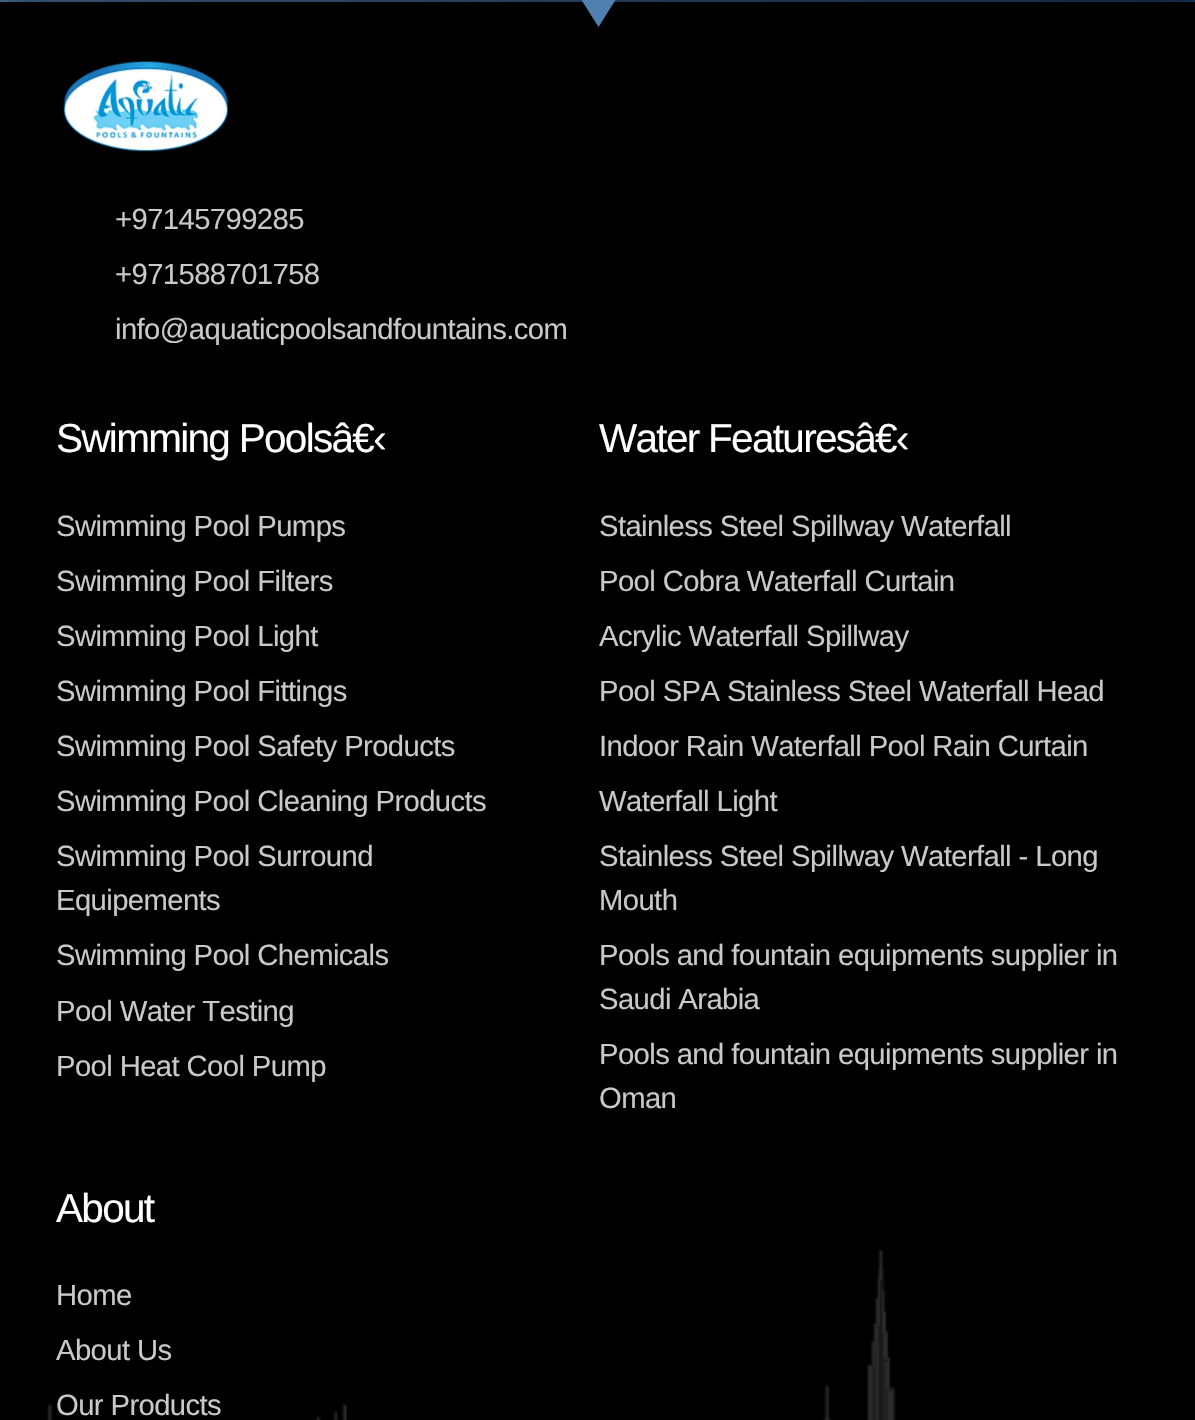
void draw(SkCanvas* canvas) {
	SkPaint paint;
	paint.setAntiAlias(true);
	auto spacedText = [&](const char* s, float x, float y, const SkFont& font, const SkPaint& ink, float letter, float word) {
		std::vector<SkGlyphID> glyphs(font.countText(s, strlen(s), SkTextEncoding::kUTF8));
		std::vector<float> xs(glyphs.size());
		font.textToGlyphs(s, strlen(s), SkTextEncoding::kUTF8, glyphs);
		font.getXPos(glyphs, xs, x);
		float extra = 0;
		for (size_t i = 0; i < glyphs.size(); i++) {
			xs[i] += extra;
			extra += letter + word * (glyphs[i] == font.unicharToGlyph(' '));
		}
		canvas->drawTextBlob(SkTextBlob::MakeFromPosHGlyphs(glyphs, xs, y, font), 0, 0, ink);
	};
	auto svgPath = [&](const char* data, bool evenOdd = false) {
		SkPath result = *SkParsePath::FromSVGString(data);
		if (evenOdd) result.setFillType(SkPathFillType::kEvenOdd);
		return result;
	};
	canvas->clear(0xffffffff);
	{
		const SkColor colors[] = {0xff4f80af, 0xff14406b};
		const float stops[] = {0.5, 1};
		const SkPoint ends[] = {{571, -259}, {626, 93}};
		paint.setShader(SkGradientShader::MakeLinear(ends, colors, stops, 2, SkTileMode::kClamp));
		paint.setAlpha(255);
	}
	canvas->drawRect(SkRect::MakeXYWH(0, 0, 1195, 2), paint);
	paint.setShader(nullptr);
	paint.setColor(0x80000000);
	paint.setMaskFilter(SkMaskFilter::MakeBlur(kNormal_SkBlurStyle, 21.5));
	canvas->drawRect(SkRect::MakeXYWH(-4, -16, 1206, 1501), paint);
	paint.setMaskFilter(nullptr);
	paint.setColor(0xff000000);
	canvas->drawRect(SkRect::MakeXYWH(0, 2, 1195, 1418), paint);
	paint.setColor(0xff4f80af);
	canvas->drawPath(svgPath("M598.5 27L581.5 0H615.5Z"), paint);
	canvas->drawImageRect(SkImages::DeferredFromEncodedData(SkData::MakeFromFileName("img1.png")), SkRect::MakeXYWH(63, 61, 166, 91), SkSamplingOptions());
	SkFont f1(fontMgr->matchFamilyStyle("Liberation Sans", SkFontStyle::Normal()), 29.25);
	f1.setSubpixel(true);
	paint.setColor(0xffc9c9c9);
	spacedText("+97145799285", 115, 229, f1, paint, -0.6, 0);
	spacedText("+971588701758", 115, 284, f1, paint, -0.6, 0);
	spacedText("info@aquaticpoolsandfountains.com", 115, 339, f1, paint, -0.6, 0);
	SkFont f2(fontMgr->matchFamilyStyle("Liberation Sans", SkFontStyle::Normal()), 40.5);
	f2.setSubpixel(true);
	paint.setColor(0xffffffff);
	spacedText("Swimming Poolsâ€‹", 56, 452, f2, paint, -1.7, 0);
	paint.setColor(0xffc9c9c9);
	spacedText("Swimming Pool Pumps", 56, 536, f1, paint, -0.6, 0);
	spacedText("Swimming Pool Filters", 56, 591, f1, paint, -0.6, 0);
	spacedText("Swimming Pool Light", 56, 646, f1, paint, -0.6, 0);
	spacedText("Swimming Pool Fittings", 56, 701, f1, paint, -0.6, 0);
	spacedText("Swimming Pool Safety Products", 56, 756, f1, paint, -0.6, 0);
	spacedText("Swimming Pool Cleaning Products", 56, 811, f1, paint, -0.6, 0);
	spacedText("Swimming Pool Surround", 56, 866, f1, paint, -0.6, 0);
	spacedText("Equipements", 56, 910, f1, paint, -0.6, 0);
	spacedText("Swimming Pool Chemicals", 56, 965, f1, paint, -0.6, 0);
	spacedText("Pool Water Testing", 56, 1021, f1, paint, -0.6, 0);
	spacedText("Pool Heat Cool Pump", 56, 1076, f1, paint, -0.6, 0);
	paint.setColor(0xffffffff);
	spacedText("Water Featuresâ€‹", 599, 452, f2, paint, -1.7, 0);
	paint.setColor(0xffc9c9c9);
	spacedText("Stainless Steel Spillway Waterfall", 599, 536, f1, paint, -0.6, 0);
	spacedText("Pool Cobra Waterfall Curtain", 599, 591, f1, paint, -0.6, 0);
	spacedText("Acrylic Waterfall Spillway", 599, 646, f1, paint, -0.6, 0);
	spacedText("Pool SPA Stainless Steel Waterfall Head", 599, 701, f1, paint, -0.6, 0);
	spacedText("Indoor Rain Waterfall Pool Rain Curtain", 599, 756, f1, paint, -0.6, 0);
	spacedText("Waterfall Light", 599, 811, f1, paint, -0.6, 0);
	spacedText("Stainless Steel Spillway Waterfall - Long", 599, 866, f1, paint, -0.6, 0);
	spacedText("Mouth", 599, 910, f1, paint, -0.6, 0);
	spacedText("Pools and fountain equipments supplier in", 599, 965, f1, paint, -0.6, 0);
	spacedText("Saudi Arabia", 599, 1009, f1, paint, -0.6, 0);
	spacedText("Pools and fountain equipments supplier in", 599, 1064, f1, paint, -0.6, 0);
	spacedText("Oman", 599, 1108, f1, paint, -0.6, 0);
	paint.setColor(0xffffffff);
	spacedText("About", 56, 1222, f2, paint, -1.7, 0);
	canvas->drawImageRect(SkImages::DeferredFromEncodedData(SkData::MakeFromFileName("img2.png")), SkRect::MakeXYWH(47, 1250, 849, 170), SkSamplingOptions());
	paint.setColor(0xffc9c9c9);
	spacedText("Home", 56, 1305, f1, paint, -0.6, 0);
	spacedText("About Us", 56, 1360, f1, paint, -0.6, 0);
	spacedText("Our Products", 56, 1415, f1, paint, -0.6, 0);
}
